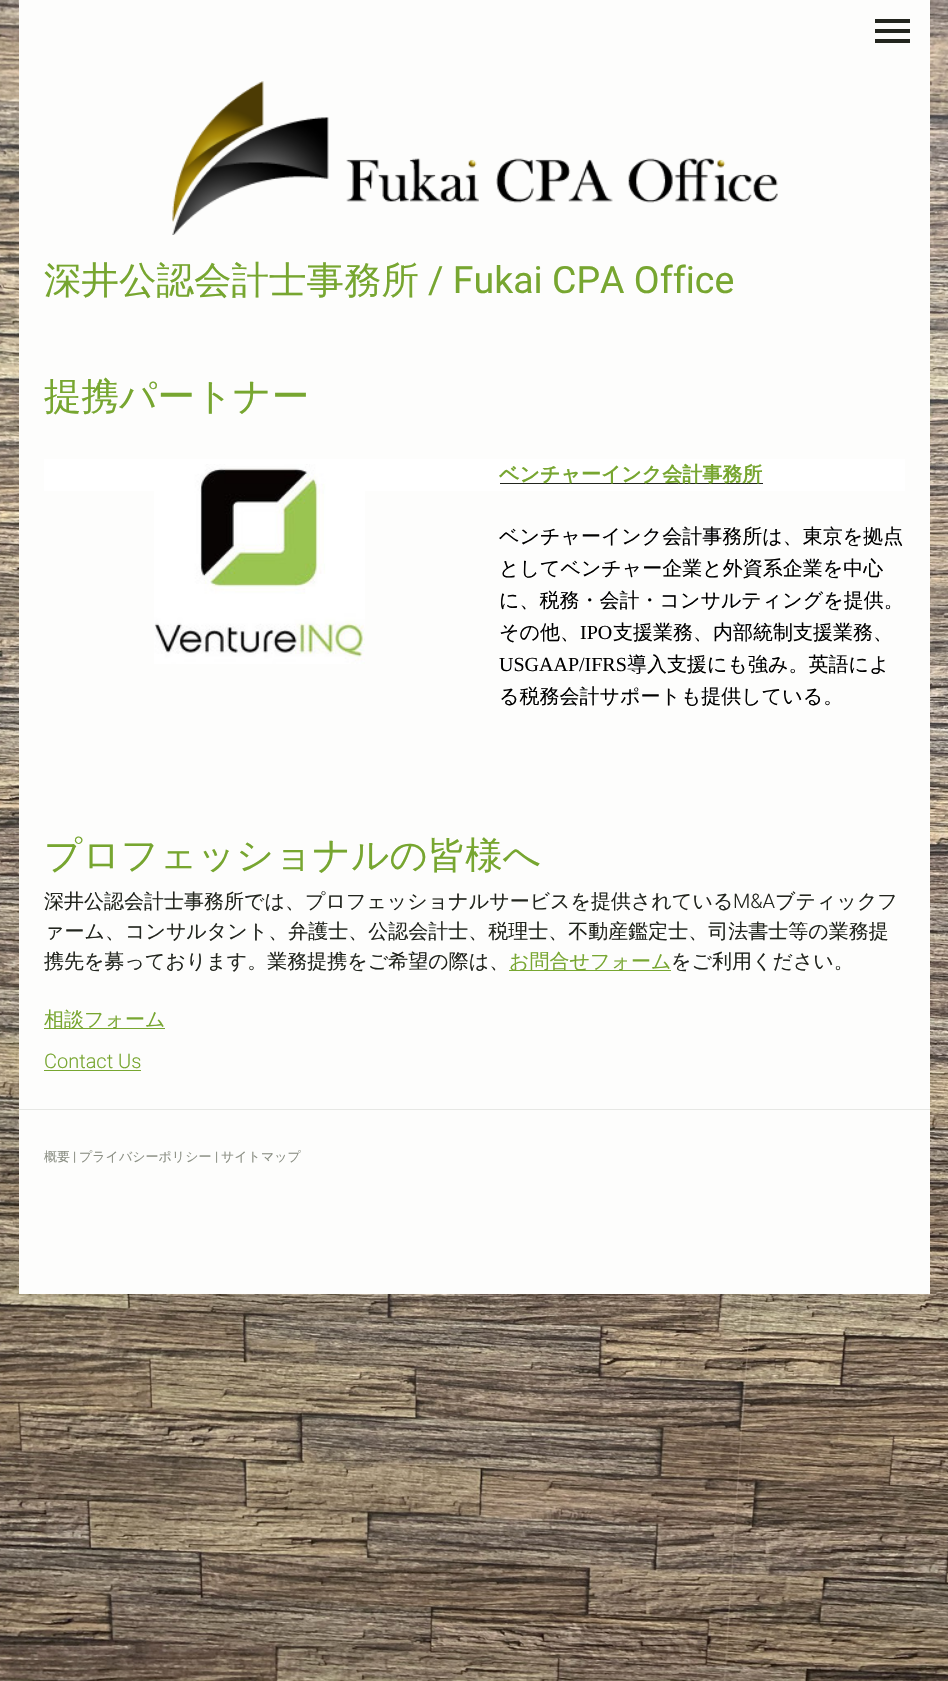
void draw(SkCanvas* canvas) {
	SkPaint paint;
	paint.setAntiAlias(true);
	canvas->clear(0xffffffff);
	canvas->drawImageRect(SkImages::DeferredFromEncodedData(SkData::MakeFromFileName("img1.png")), SkRect::MakeXYWH(0, 0, 948, 1681), SkSamplingOptions());
	paint.setColor(0xfffdfdfc);
	canvas->drawRect(SkRect::MakeXYWH(19, 0, 911, 1294), paint);
	paint.setColor(0xff22251e);
	canvas->drawRect(SkRect::MakeXYWH(875, 29, 35, 4), paint);
	canvas->drawRect(SkRect::MakeXYWH(875, 19, 35, 4), paint);
	canvas->drawRect(SkRect::MakeXYWH(875, 39, 35, 4), paint);
	canvas->drawImageRect(SkImages::DeferredFromEncodedData(SkData::MakeFromFileName("img2.png")), SkRect::MakeXYWH(172, 81, 606, 154), SkSamplingOptions());
	SkFont f1(fontMgr->matchFamilyStyle("WenQuanYi Zen Hei", SkFontStyle(500, SkFontStyle::kNormal_Width, SkFontStyle::kUpright_Slant)), 37.5);
	f1.setSubpixel(true);
	paint.setColor(0xff77a630);
	canvas->drawString("深井公認会計士事務所", 44, 293, f1, paint);
	SkFont f2(fontMgr->matchFamilyStyle("Roboto", SkFontStyle::Normal()), 37.5);
	f2.setSubpixel(true);
	canvas->drawString("/ Fukai CPA Office", 428, 293, f2, paint);
	canvas->drawString("提携パートナー", 44, 409, f1, paint);
	paint.setColor(0xffffffff);
	canvas->drawRect(SkRect::MakeXYWH(44, 459, 861, 32), paint);
	canvas->drawImageRect(SkImages::DeferredFromEncodedData(SkData::MakeFromFileName("img3.png")), SkRect::MakeXYWH(154, 464, 211, 200), SkSamplingOptions());
	paint.setColor(0xff22251e);
	canvas->drawRect(SkRect::MakeXYWH(500, 483, 263, 1), paint);
	SkFont f3(fontMgr->matchFamilyStyle("WenQuanYi Zen Hei", SkFontStyle::Bold()), 20);
	f3.setSubpixel(true);
	paint.setColor(0xff77a630);
	canvas->drawString("ベンチャーインク会計事務所", 499, 481, f3, paint);
	SkFont f4(fontMgr->matchFamilyStyle("WenQuanYi Zen Hei", SkFontStyle(500, SkFontStyle::kNormal_Width, SkFontStyle::kUpright_Slant)), 20);
	f4.setSubpixel(true);
	paint.setColor(0xff000000);
	canvas->drawString("ベンチャーインク会計事務所は、東京を拠点", 499, 543, f4, paint);
	canvas->drawString("としてベンチャー企業と外資系企業を中心", 499, 575, f4, paint);
	canvas->drawString("に、税務・会計・コンサルティングを提供。", 499, 607, f4, paint);
	canvas->drawString("その他、", 499, 639, f4, paint);
	SkFont f5(fontMgr->matchFamilyStyle("Liberation Serif", SkFontStyle::Normal()), 20);
	f5.setSubpixel(true);
	canvas->drawString("IPO", 580, 639, f5, paint);
	canvas->drawString("支援業務、内部統制支援業務、", 613, 639, f4, paint);
	canvas->drawString("USGAAP/IFRS", 499, 671, f5, paint);
	canvas->drawString("導入支援にも強み。英語によ", 627, 671, f4, paint);
	canvas->drawString("る税務会計サポートも提供している。", 499, 703, f4, paint);
	paint.setColor(0xff77a630);
	canvas->drawString("プロフェッショナルの皆様へ", 44, 868, f1, paint);
	paint.setColor(0xff22251e);
	canvas->drawString("深井公認会計士事務所では、プロフェッショナルサービスを提供されている", 44, 908, f4, paint);
	SkFont f6(fontMgr->matchFamilyStyle("Roboto", SkFontStyle(300, SkFontStyle::kNormal_Width, SkFontStyle::kUpright_Slant)), 20);
	f6.setSubpixel(true);
	canvas->drawString("M&A", 733, 908, f6, paint);
	canvas->drawString("ブティックフ", 775, 908, f4, paint);
	canvas->drawString("ァーム、コンサルタント、弁護士、公認会計士、税理士、不動産鑑定士、司法書士等の業務提", 44, 938, f4, paint);
	canvas->drawString("携先を募っております。業務提携をご希望の際は、", 44, 968, f4, paint);
	paint.setColor(0xff77a630);
	canvas->drawRect(SkRect::MakeXYWH(509, 970, 162, 1), paint);
	canvas->drawString("お問合せフォーム", 509, 968, f4, paint);
	paint.setColor(0xff22251e);
	canvas->drawString("をご利用ください。", 671, 968, f4, paint);
	paint.setColor(0xff77a630);
	canvas->drawRect(SkRect::MakeXYWH(44, 1028, 121, 1), paint);
	canvas->drawString("相談フォーム", 44, 1026, f4, paint);
	canvas->drawString("Contact Us", 44, 1068, f6, paint);
	canvas->drawRect(SkRect::MakeXYWH(44, 1070, 97, 1), paint);
	paint.setColor(0xffe6e7e4);
	canvas->drawRect(SkRect::MakeXYWH(19, 1109, 911, 1), paint);
	SkFont f7(fontMgr->matchFamilyStyle("WenQuanYi Zen Hei", SkFontStyle(500, SkFontStyle::kNormal_Width, SkFontStyle::kUpright_Slant)), 13);
	f7.setSubpixel(true);
	paint.setColor(0xff8b8f84);
	canvas->drawString("概要", 44, 1161, f7, paint);
	SkFont f8(fontMgr->matchFamilyStyle("Roboto", SkFontStyle::Normal()), 13);
	f8.setSubpixel(true);
	canvas->drawString("|", 73, 1161, f8, paint);
	canvas->drawString("プライバシーポリシー", 79, 1161, f7, paint);
	canvas->drawString("|", 215, 1161, f8, paint);
	canvas->drawString("サイトマップ", 221, 1161, f7, paint);
}
